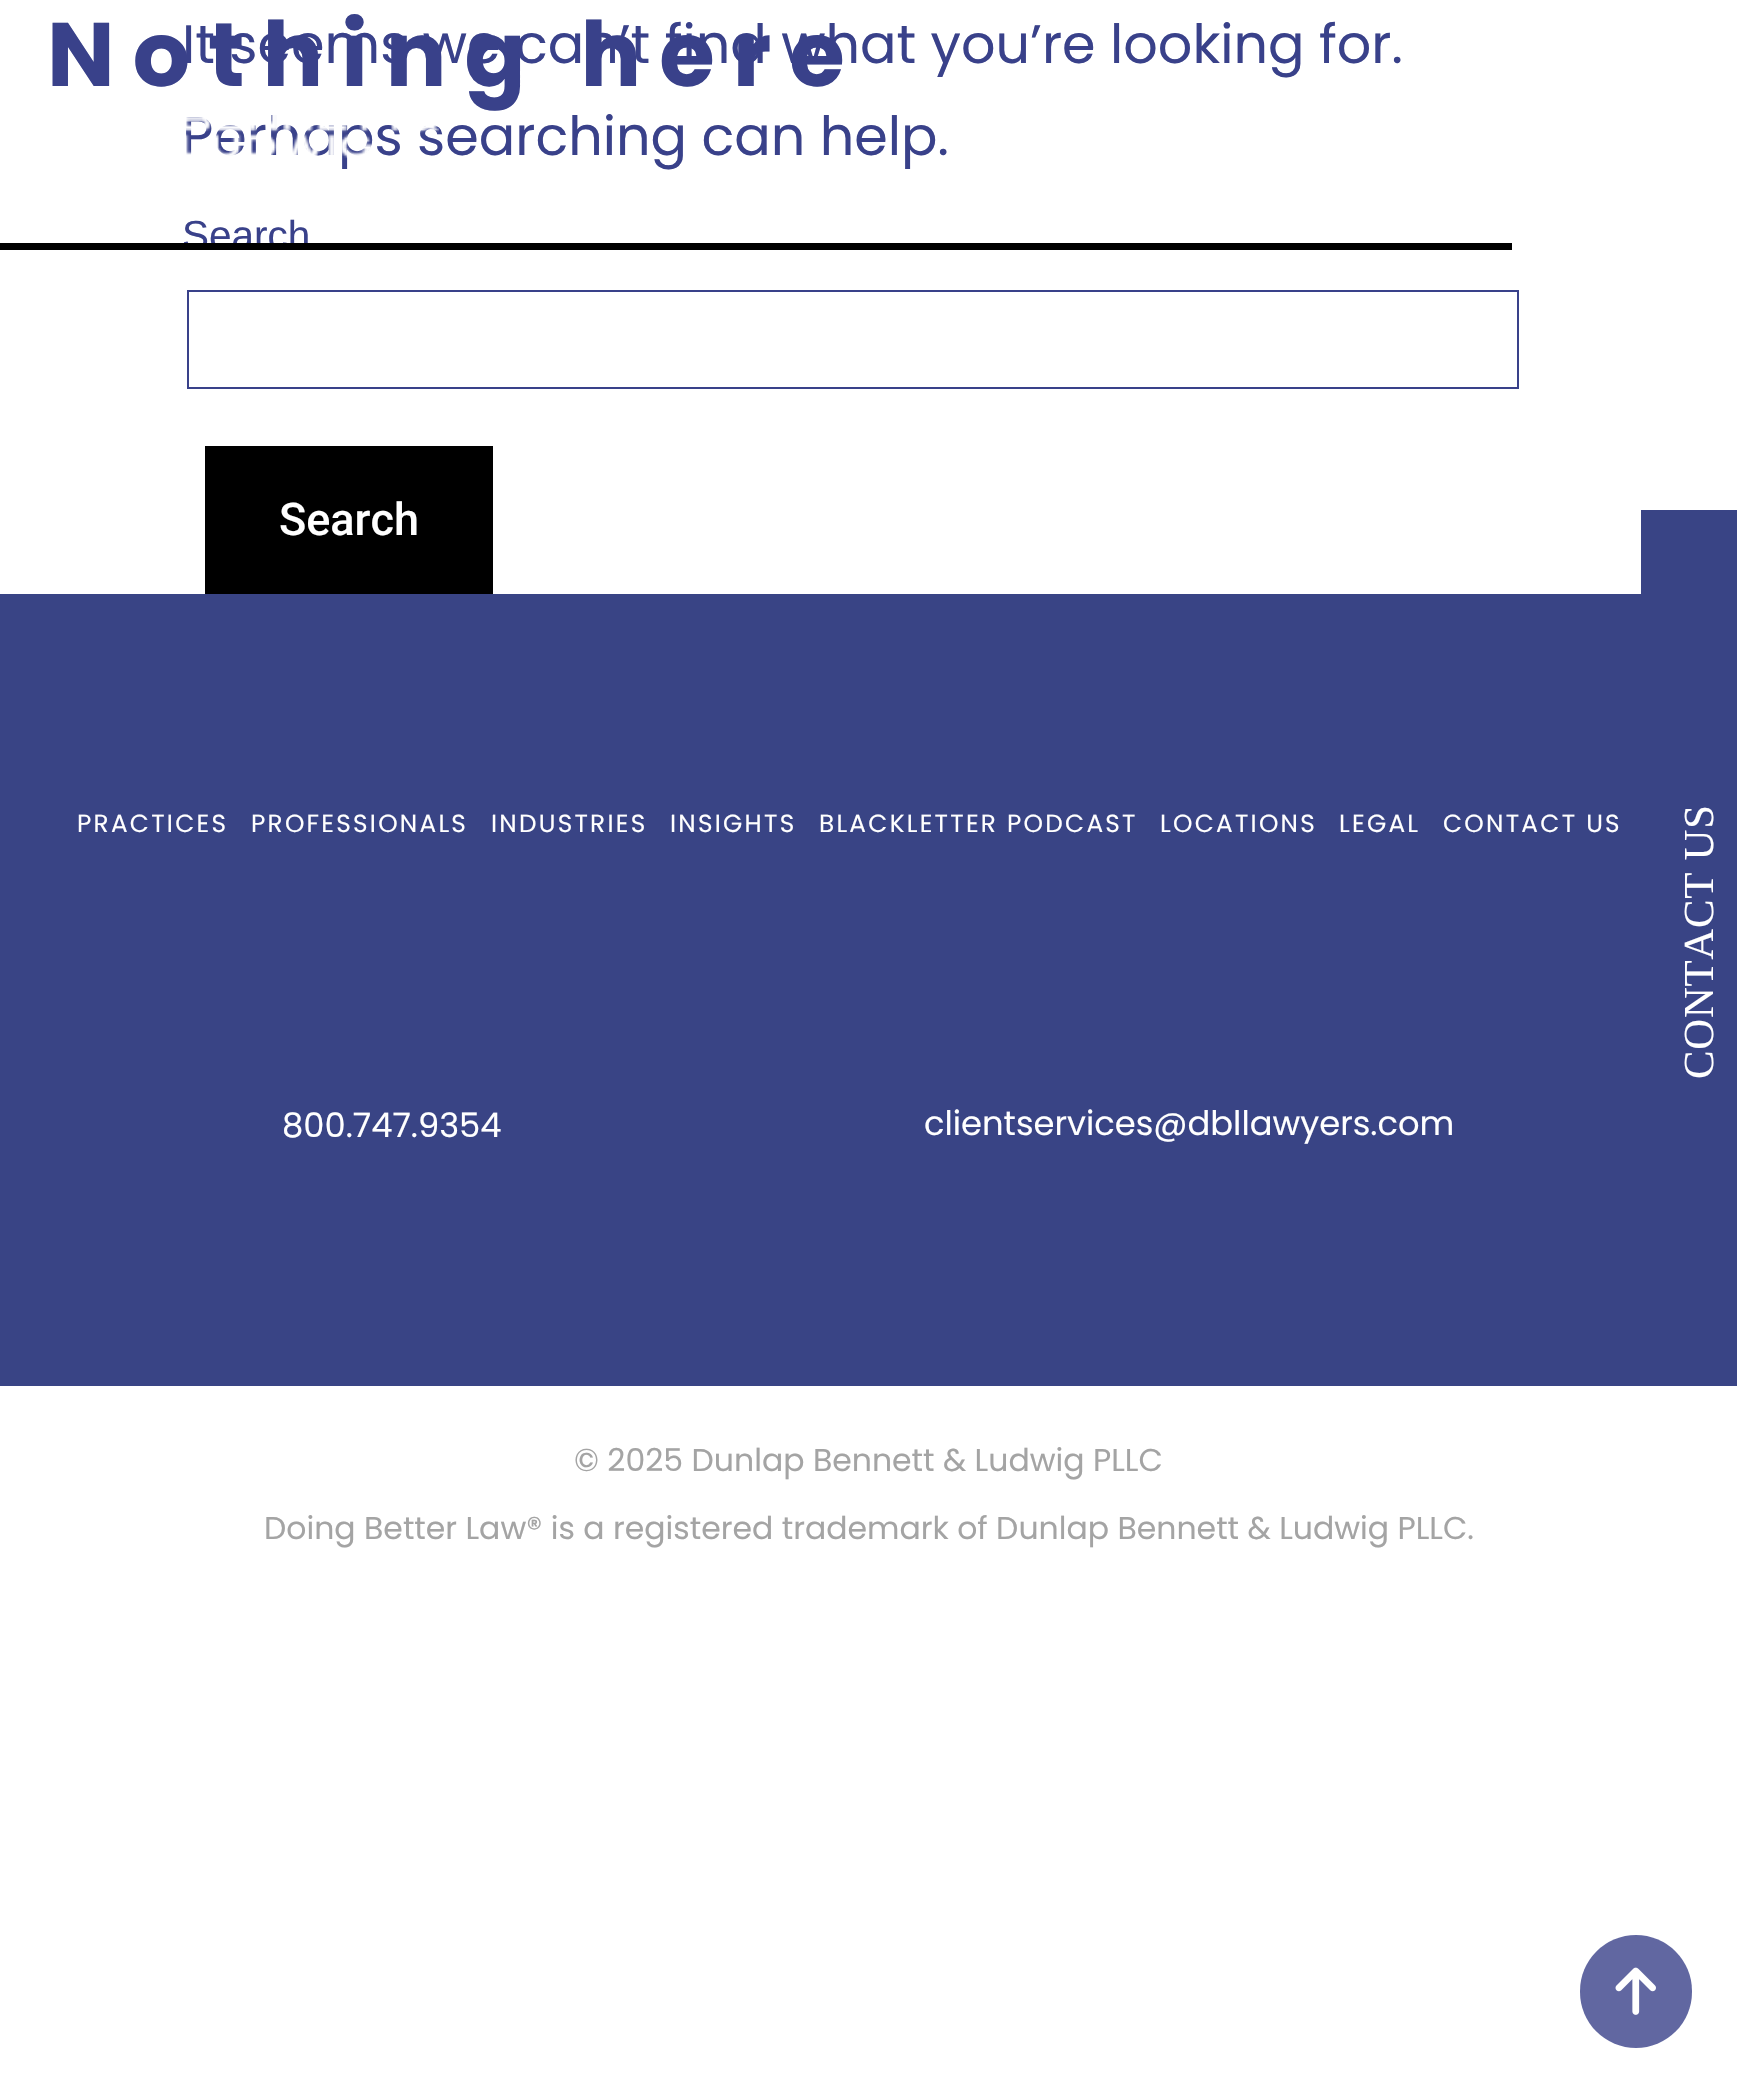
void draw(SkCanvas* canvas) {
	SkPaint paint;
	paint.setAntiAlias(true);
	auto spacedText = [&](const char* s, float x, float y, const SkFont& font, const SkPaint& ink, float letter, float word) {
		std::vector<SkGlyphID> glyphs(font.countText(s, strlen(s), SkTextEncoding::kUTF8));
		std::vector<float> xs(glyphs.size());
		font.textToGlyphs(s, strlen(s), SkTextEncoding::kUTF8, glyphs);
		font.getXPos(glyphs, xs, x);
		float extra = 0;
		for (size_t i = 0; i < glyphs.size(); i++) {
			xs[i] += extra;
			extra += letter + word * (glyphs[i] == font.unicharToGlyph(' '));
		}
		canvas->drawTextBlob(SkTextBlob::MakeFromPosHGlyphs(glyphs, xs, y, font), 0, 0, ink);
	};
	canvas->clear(0xffffffff);
	SkFont f1(fontMgr->matchFamilyStyle("Liberation Sans", SkFontStyle::Normal()), 40.5);
	f1.setSubpixel(true);
	paint.setColor(0xff39418a);
	canvas->drawString("Search", 182, 249, f1, paint);
	paint.setColor(0xff000000);
	canvas->drawRect(SkRect::MakeXYWH(0, 243, 1512, 7), paint);
	SkFont f2(fontMgr->matchFamilyStyle("Poppins", SkFontStyle::Normal()), 54);
	f2.setSubpixel(true);
	paint.setColor(0xff39418a);
	canvas->drawString("It seems we can’t find what you’re looking for.", 182, 63, f2, paint);
	SkFont f3(fontMgr->matchFamilyStyle("Poppins", SkFontStyle::Bold()), 90);
	f3.setSubpixel(true);
	spacedText("Nothing here", 47, 86, f3, paint, 18, 0);
	canvas->drawString("Perhaps searching can help.", 182, 155, f2, paint);
	paint.setStroke(true);
	paint.setStrokeWidth(2);
	canvas->drawRect(SkRect::MakeXYWH(188, 291, 1330, 97), paint);
	paint.setStroke(false);
	paint.setColor(0xff000000);
	canvas->drawRect(SkRect::MakeXYWH(205, 446, 288, 148), paint);
	SkFont f4(fontMgr->matchFamilyStyle("Roboto", SkFontStyle(500, SkFontStyle::kNormal_Width, SkFontStyle::kUpright_Slant)), 45);
	f4.setSubpixel(true);
	paint.setColor(0xffffffff);
	canvas->drawString("Search", 279, 535, f4, paint);
	canvas->drawImageRect(SkImages::DeferredFromEncodedData(SkData::MakeFromFileName("img1.png")), SkRect::MakeXYWH(186, 115, 253, 44), SkSamplingOptions());
	paint.setColor(0xff394485);
	canvas->drawRect(SkRect::MakeXYWH(0, 594, 1737, 792), paint);
	SkFont f5(fontMgr->matchFamilyStyle("Poppins", SkFontStyle::Normal()), 24.75);
	f5.setSubpixel(true);
	paint.setColor(0xffffffff);
	spacedText("PRACTICES", 77, 832, f5, paint, 2.25, 0);
	spacedText("PROFESSIONALS", 251, 832, f5, paint, 2.25, 0);
	spacedText("INDUSTRIES", 491, 832, f5, paint, 2.25, 0);
	spacedText("INSIGHTS", 670, 832, f5, paint, 2.25, 0);
	spacedText("BLACKLETTER PODCAST", 819, 832, f5, paint, 2.25, 0);
	spacedText("LOCATIONS", 1160, 832, f5, paint, 2.25, 0);
	spacedText("LEGAL", 1339, 832, f5, paint, 2.25, 0);
	spacedText("CONTACT US", 1443, 832, f5, paint, 2.25, 0);
	SkFont f6(fontMgr->matchFamilyStyle("Poppins", SkFontStyle::Normal()), 33.75);
	f6.setSubpixel(true);
	canvas->drawString("800.747.9354", 282, 1137, f6, paint);
	canvas->drawString("clientservices@dbllawyers.com", 924, 1135, f6, paint);
	SkFont f7(fontMgr->matchFamilyStyle("Poppins", SkFontStyle::Normal()), 31.5);
	f7.setSubpixel(true);
	paint.setColor(0xffa4a4a4);
	canvas->drawString("© 2025 Dunlap Bennett & Ludwig PLLC", 574, 1471, f7, paint);
	canvas->drawString("Doing Better Law® is a registered trademark of Dunlap Bennett & Ludwig PLLC.", 264, 1539, f7, paint);
	paint.setColor(0xff394485);
	canvas->drawRect(SkRect::MakeXYWH(1641, 510, 96, 84), paint);
	SkFont f8(fontMgr->matchFamilyStyle("Liberation Serif", SkFontStyle::Normal()), 42.75);
	f8.setSubpixel(true);
	paint.setColor(0xffffffff);
	canvas->save();
	canvas->rotate(-90, 1713, 1079);
	spacedText("CONTACT US", 1713, 1079, f8, paint, 0.75, 0);
	canvas->restore();
	paint.setColor(0xff6167a1);
	canvas->drawRoundRect(SkRect::MakeXYWH(1580, 1935, 112, 113), 56, 56, paint);
	canvas->drawImageRect(SkImages::DeferredFromEncodedData(SkData::MakeFromFileName("img2.png")), SkRect::MakeXYWH(1615, 1967, 41, 48), SkSamplingOptions());
}
